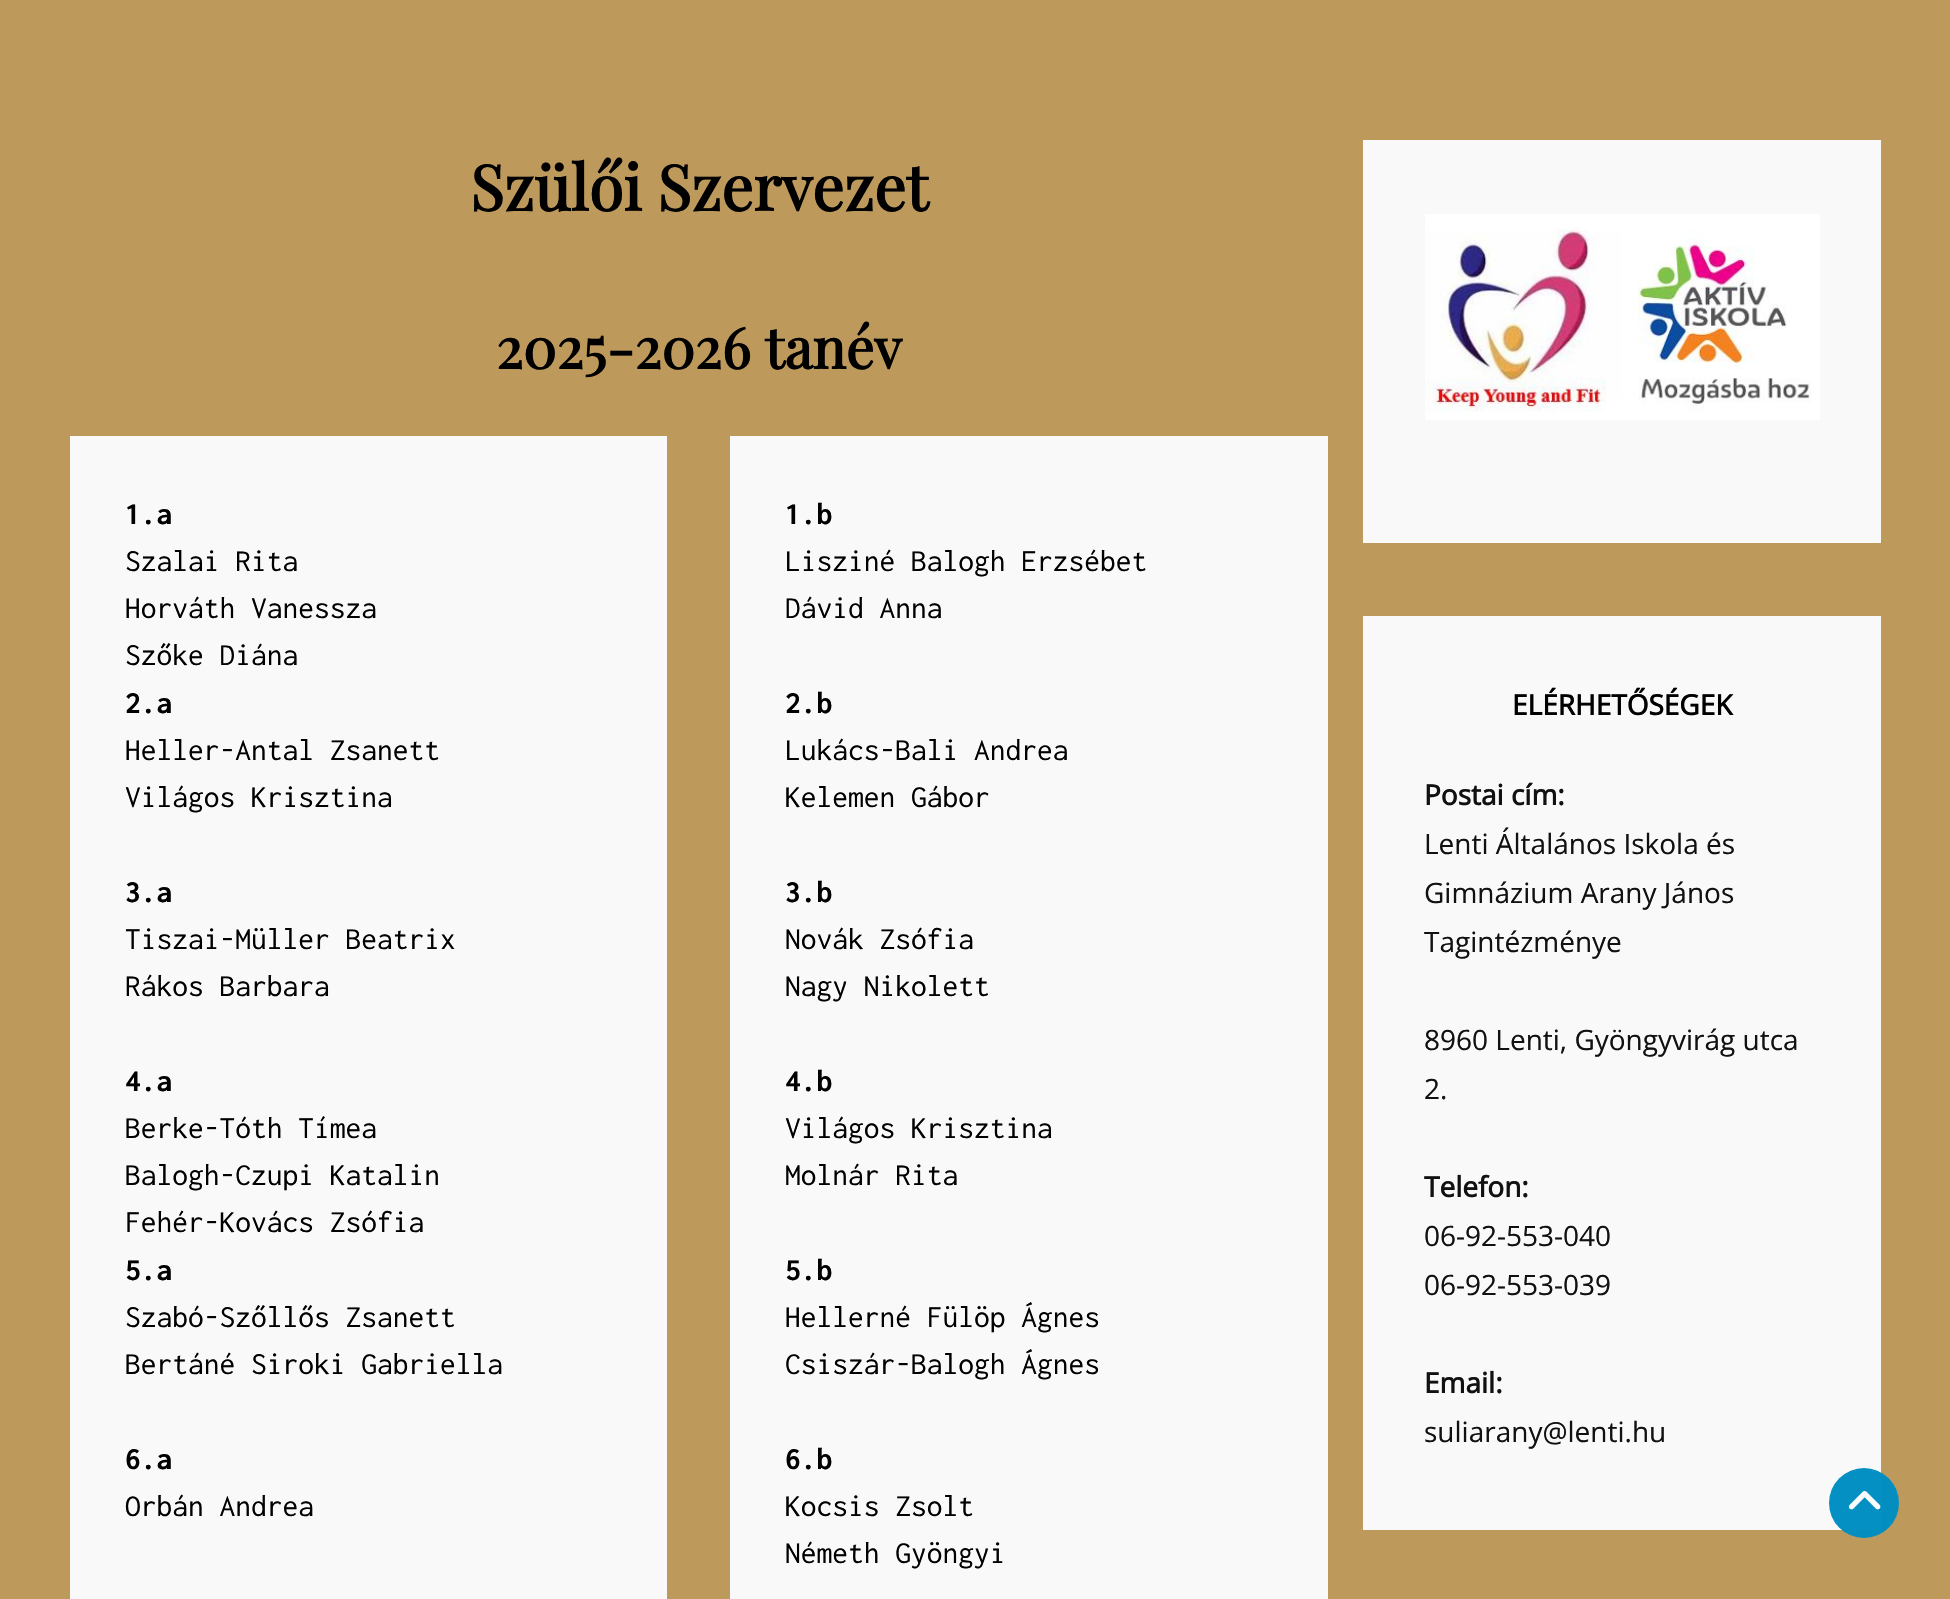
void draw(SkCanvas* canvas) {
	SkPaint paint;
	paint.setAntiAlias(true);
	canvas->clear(0xffbd995c);
	SkFont f1(fontMgr->matchFamilyStyle("Playfair Display", SkFontStyle::Bold()), 63);
	f1.setSubpixel(true);
	paint.setColor(0xff000000);
	canvas->drawString("Szülői Szervezet", 470, 211, f1, paint);
	SkFont f2(fontMgr->matchFamilyStyle("Playfair Display", SkFontStyle::Bold()), 56);
	f2.setSubpixel(true);
	canvas->drawString("2025-2026 tanév", 496, 369, f2, paint);
	paint.setColor(0xfff9f9f9);
	canvas->drawRect(SkRect::MakeXYWH(70, 436, 597, 1163), paint);
	SkFont f3(fontMgr->matchFamilyStyle("Inconsolata", SkFontStyle::Bold()), 31.5);
	f3.setSubpixel(true);
	paint.setColor(0xff000000);
	canvas->drawString("1.a", 125, 524, f3, paint);
	SkFont f4(fontMgr->matchFamilyStyle("Inconsolata", SkFontStyle::Normal()), 31.5);
	f4.setSubpixel(true);
	canvas->drawString("Szalai Rita", 125, 571, f4, paint);
	canvas->drawString("Horváth Vanessza", 125, 618, f4, paint);
	canvas->drawString("Szőke Diána", 125, 665, f4, paint);
	canvas->drawString("2.a", 125, 713, f3, paint);
	canvas->drawString("Heller-Antal Zsanett", 125, 760, f4, paint);
	canvas->drawString("Világos Krisztina", 125, 807, f4, paint);
	canvas->drawString("3.a", 125, 902, f3, paint);
	canvas->drawString("Tiszai-Müller Beatrix", 125, 949, f4, paint);
	canvas->drawString("Rákos Barbara", 125, 996, f4, paint);
	canvas->drawString("4.a", 125, 1091, f3, paint);
	canvas->drawString("Berke-Tóth Tímea", 125, 1138, f4, paint);
	canvas->drawString("Balogh-Czupi Katalin", 125, 1185, f4, paint);
	canvas->drawString("Fehér-Kovács Zsófia", 125, 1232, f4, paint);
	canvas->drawString("5.a", 125, 1280, f3, paint);
	canvas->drawString("Szabó-Szőllős Zsanett", 125, 1327, f4, paint);
	canvas->drawString("Bertáné Siroki Gabriella", 125, 1374, f4, paint);
	canvas->drawString("6.a", 125, 1469, f3, paint);
	canvas->drawString("Orbán Andrea", 125, 1516, f4, paint);
	paint.setColor(0xfff9f9f9);
	canvas->drawRect(SkRect::MakeXYWH(730, 436, 598, 1163), paint);
	paint.setColor(0xff000000);
	canvas->drawString("1.b", 785, 524, f3, paint);
	canvas->drawString("Lisziné Balogh Erzsébet", 785, 571, f4, paint);
	canvas->drawString("Dávid Anna", 785, 618, f4, paint);
	canvas->drawString("2.b", 785, 713, f3, paint);
	canvas->drawString("Lukács-Bali Andrea", 785, 760, f4, paint);
	canvas->drawString("Kelemen Gábor", 785, 807, f4, paint);
	canvas->drawString("3.b", 785, 902, f3, paint);
	canvas->drawString("Novák Zsófia", 785, 949, f4, paint);
	canvas->drawString("Nagy Nikolett", 785, 996, f4, paint);
	canvas->drawString("4.b", 785, 1091, f3, paint);
	canvas->drawString("Világos Krisztina", 785, 1138, f4, paint);
	canvas->drawString("Molnár Rita", 785, 1185, f4, paint);
	canvas->drawString("5.b", 785, 1280, f3, paint);
	canvas->drawString("Hellerné Fülöp Ágnes", 785, 1327, f4, paint);
	canvas->drawString("Csiszár-Balogh Ágnes", 785, 1374, f4, paint);
	canvas->drawString("6.b", 785, 1469, f3, paint);
	canvas->drawString("Kocsis Zsolt", 785, 1516, f4, paint);
	canvas->drawString("Németh Gyöngyi", 785, 1563, f4, paint);
	paint.setColor(0xfff9f9f9);
	canvas->drawRect(SkRect::MakeXYWH(1363, 140, 518, 403), paint);
	canvas->drawImageRect(SkImages::DeferredFromEncodedData(SkData::MakeFromFileName("img1.png")), SkRect::MakeXYWH(1425, 214, 395, 206), SkSamplingOptions());
	canvas->drawRect(SkRect::MakeXYWH(1363, 616, 518, 914), paint);
	SkFont f5(fontMgr->matchFamilyStyle("Open Sans", SkFontStyle::Bold()), 28);
	f5.setSubpixel(true);
	paint.setColor(0xff000000);
	canvas->drawString("ELÉRHETŐSÉGEK", 1512, 715, f5, paint);
	paint.setColor(0xff111111);
	canvas->drawString("Postai cím:", 1424, 805, f5, paint);
	SkFont f6(fontMgr->matchFamilyStyle("Open Sans", SkFontStyle::Normal()), 28);
	f6.setSubpixel(true);
	canvas->drawString("Lenti Általános Iskola és", 1424, 854, f6, paint);
	canvas->drawString("Gimnázium Arany János", 1424, 903, f6, paint);
	canvas->drawString("Tagintézménye", 1424, 952, f6, paint);
	canvas->drawString("8960 Lenti, Gyöngyvirág utca", 1424, 1050, f6, paint);
	canvas->drawString("2.", 1424, 1099, f6, paint);
	canvas->drawString("Telefon:", 1424, 1197, f5, paint);
	canvas->drawString("06-92-553-040", 1424, 1246, f6, paint);
	canvas->drawString("06-92-553-039", 1424, 1295, f6, paint);
	canvas->drawString("Email:", 1424, 1393, f5, paint);
	canvas->drawString("suliarany@lenti.hu", 1424, 1442, f6, paint);
	paint.setColor(0xfa008ec2);
	canvas->drawCircle(1864, 1503, 35, paint);
	canvas->drawImageRect(SkImages::DeferredFromEncodedData(SkData::MakeFromFileName("img2.png")), SkRect::MakeXYWH(1848, 1491, 33, 19), SkSamplingOptions());
}
